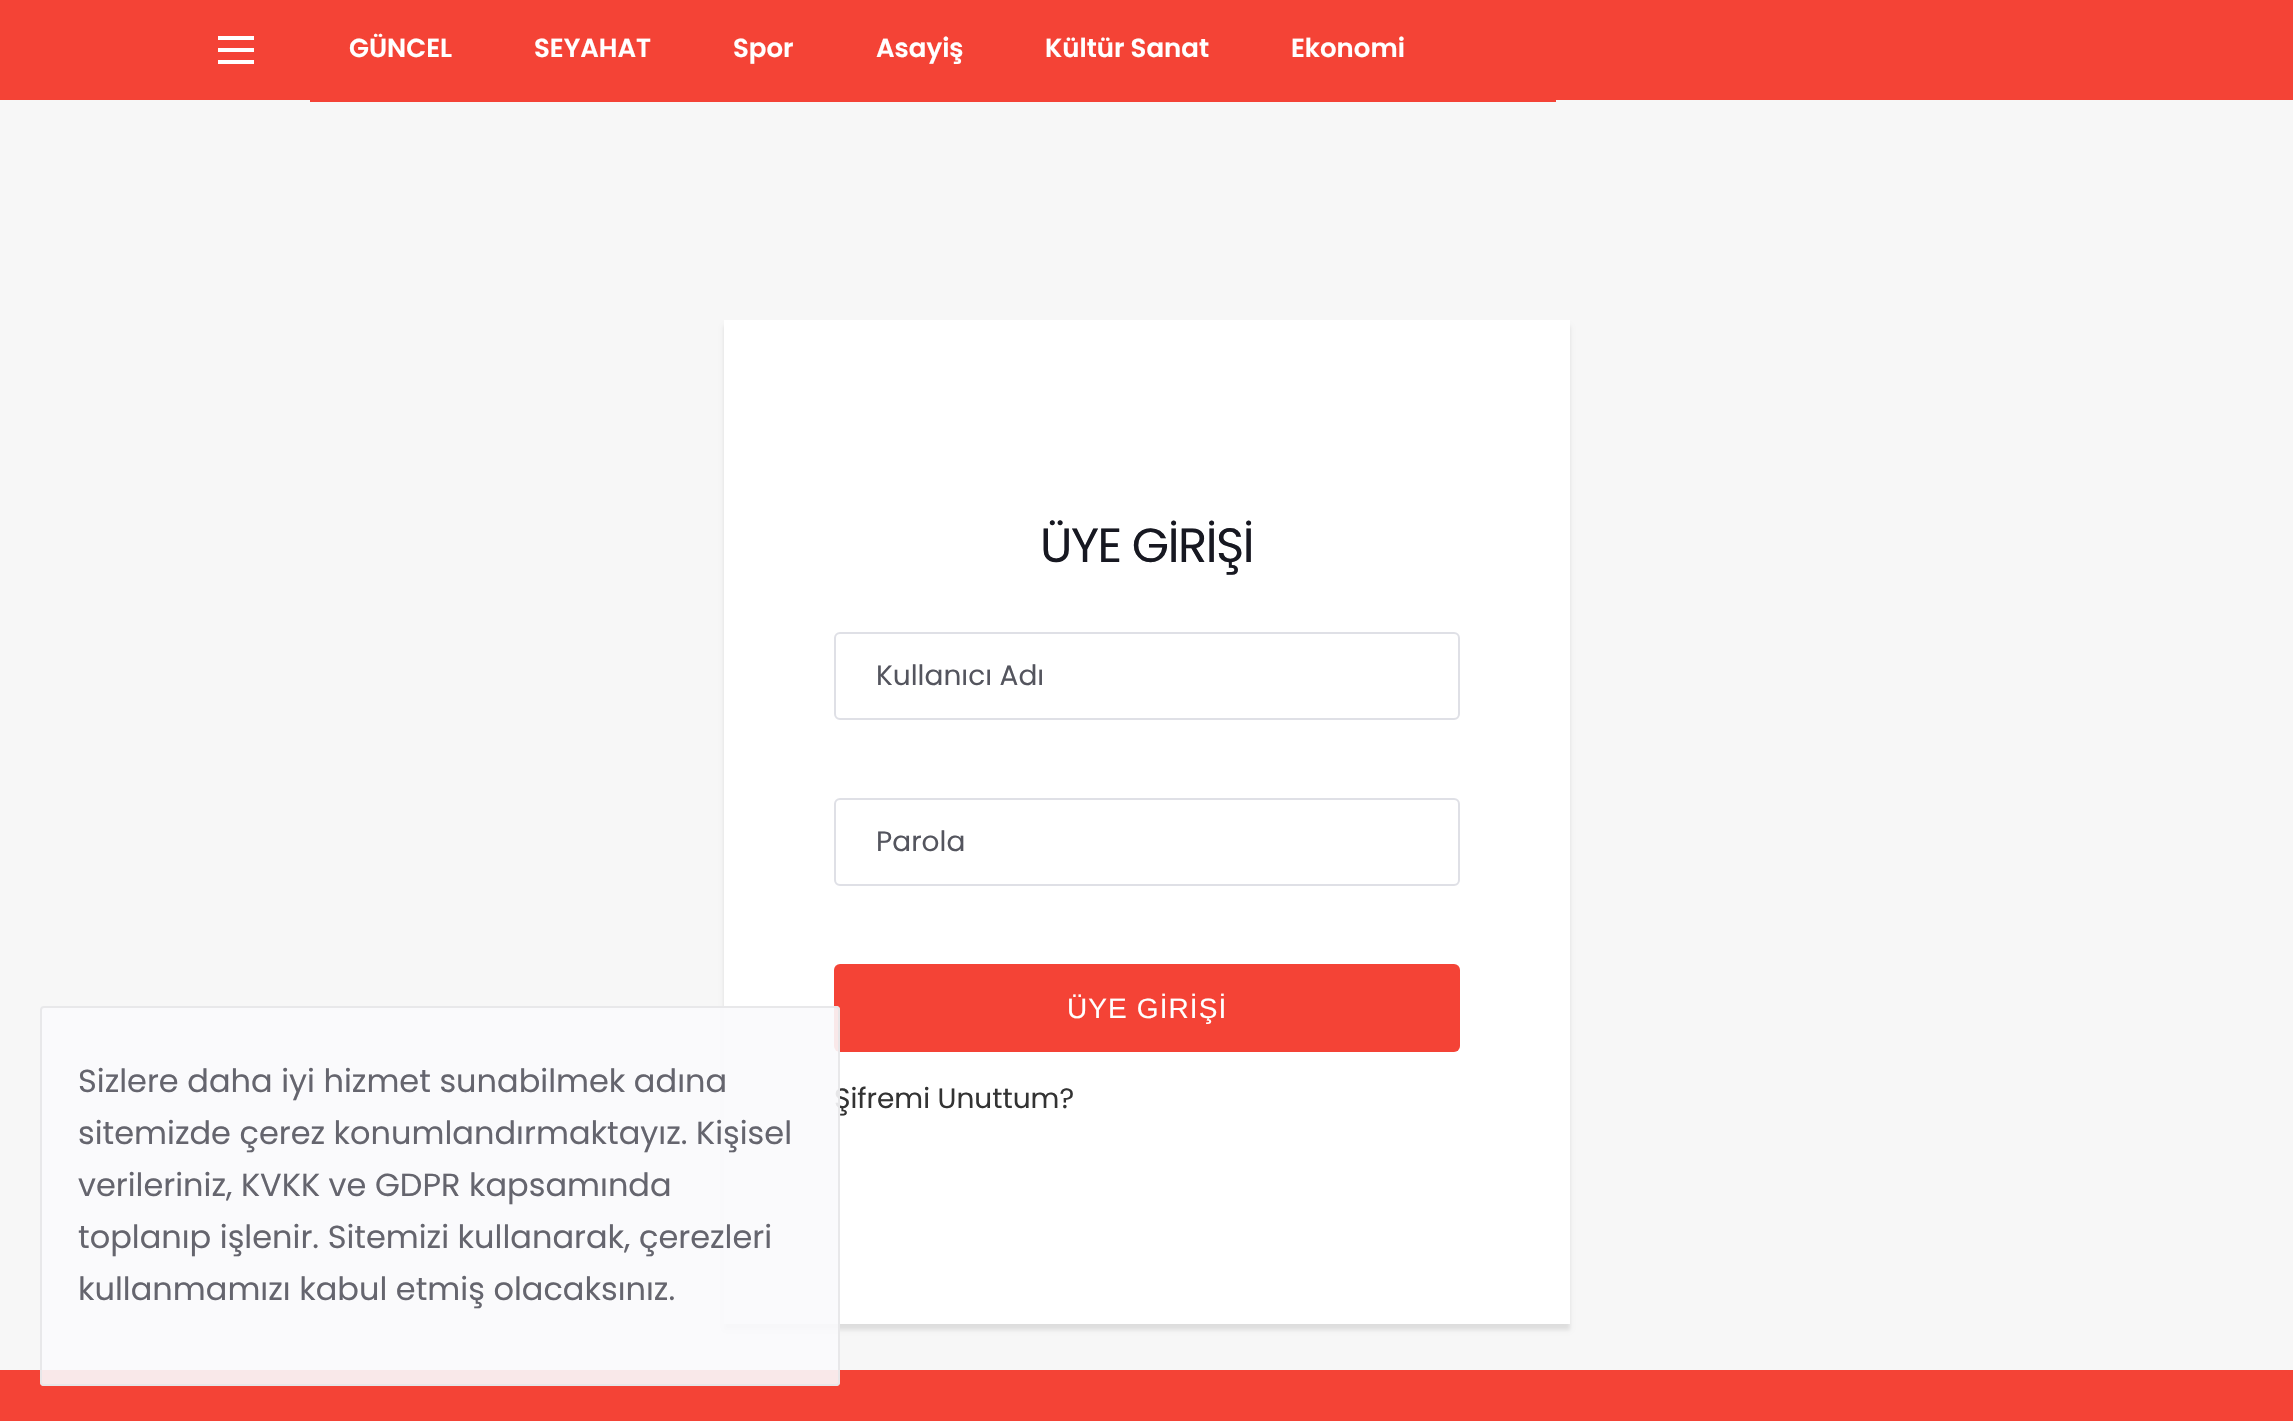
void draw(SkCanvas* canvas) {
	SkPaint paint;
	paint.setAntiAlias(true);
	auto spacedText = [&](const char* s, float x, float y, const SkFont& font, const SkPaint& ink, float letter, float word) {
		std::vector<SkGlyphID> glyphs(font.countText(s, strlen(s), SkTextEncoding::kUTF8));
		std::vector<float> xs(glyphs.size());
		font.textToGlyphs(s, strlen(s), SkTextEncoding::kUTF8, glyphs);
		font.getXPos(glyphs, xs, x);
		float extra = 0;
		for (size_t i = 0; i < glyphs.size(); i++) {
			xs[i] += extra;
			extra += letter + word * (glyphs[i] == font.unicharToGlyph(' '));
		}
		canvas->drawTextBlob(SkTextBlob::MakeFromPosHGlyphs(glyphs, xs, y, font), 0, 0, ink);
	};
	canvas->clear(0xfff7f7f7);
	paint.setColor(0xfff44336);
	canvas->drawRect(SkRect::MakeXYWH(0, 0, 2293, 100), paint);
	paint.setColor(0xffffffff);
	canvas->drawRect(SkRect::MakeXYWH(218, 48, 36, 4), paint);
	canvas->drawRect(SkRect::MakeXYWH(218, 36, 36, 4), paint);
	canvas->drawRect(SkRect::MakeXYWH(218, 60, 36, 4), paint);
	paint.setColor(0xfff44336);
	canvas->drawRect(SkRect::MakeXYWH(310, 100, 942, 2), paint);
	SkFont f1(fontMgr->matchFamilyStyle("Poppins", SkFontStyle(600, SkFontStyle::kNormal_Width, SkFontStyle::kUpright_Slant)), 26);
	f1.setSubpixel(true);
	paint.setColor(0xffffffff);
	canvas->drawString("GÜNCEL", 349, 57, f1, paint);
	canvas->drawString("SEYAHAT", 534, 57, f1, paint);
	canvas->drawString("Spor", 733, 57, f1, paint);
	canvas->drawString("Asayiş", 876, 57, f1, paint);
	canvas->drawString("Kültür Sanat", 1045, 57, f1, paint);
	canvas->drawString("Ekonomi", 1291, 57, f1, paint);
	paint.setColor(0xfff44336);
	canvas->drawRect(SkRect::MakeXYWH(1252, 100, 304, 2), paint);
	paint.setColor(0x1a000000);
	paint.setMaskFilter(SkMaskFilter::MakeBlur(kNormal_SkBlurStyle, 2));
	canvas->drawRect(SkRect::MakeXYWH(724, 326, 846, 1004), paint);
	paint.setMaskFilter(nullptr);
	paint.setColor(0xffffffff);
	canvas->drawRect(SkRect::MakeXYWH(724, 320, 846, 1004), paint);
	SkFont f2(fontMgr->matchFamilyStyle("Poppins", SkFontStyle::Normal()), 48);
	f2.setSubpixel(true);
	paint.setColor(0xff171821);
	spacedText("ÜYE GİRİŞİ", 1040, 562, f2, paint, -1.5, 0);
	paint.setStroke(true);
	paint.setStrokeWidth(2);
	paint.setColor(0xffdfe0e6);
	canvas->drawRoundRect(SkRect::MakeXYWH(835, 633, 624, 86), 5, 5, paint);
	SkFont f3(fontMgr->matchFamilyStyle("Poppins", SkFontStyle::Normal()), 28);
	f3.setSubpixel(true);
	paint.setStroke(false);
	paint.setColor(0xff54555e);
	canvas->drawString("Kullanıcı Adı", 876, 685, f3, paint);
	paint.setStroke(true);
	paint.setColor(0xffdfe0e6);
	canvas->drawRoundRect(SkRect::MakeXYWH(835, 799, 624, 86), 5, 5, paint);
	paint.setStroke(false);
	paint.setColor(0xff54555e);
	canvas->drawString("Parola", 876, 851, f3, paint);
	paint.setColor(0xfff44336);
	canvas->drawRoundRect(SkRect::MakeXYWH(834, 964, 626, 88), 6, 6, paint);
	SkFont f4(fontMgr->matchFamilyStyle("Liberation Sans", SkFontStyle::Normal()), 28);
	f4.setSubpixel(true);
	paint.setColor(0xffffffff);
	spacedText("ÜYE GİRİŞİ", 1067, 1018, f4, paint, 1.1, 0);
	paint.setColor(0xff333333);
	canvas->drawString("Şifremi Unuttum?", 834, 1108, f3, paint);
	paint.setColor(0xfff44336);
	canvas->drawRect(SkRect::MakeXYWH(0, 1370, 2293, 51), paint);
	paint.setColor(0xe6fafafc);
	canvas->drawRoundRect(SkRect::MakeXYWH(40, 1006, 800, 380), 4, 4, paint);
	paint.setStroke(true);
	paint.setColor(0xe6e5e5e8);
	canvas->drawRoundRect(SkRect::MakeXYWH(41, 1007, 798, 378), 3, 3, paint);
	SkFont f5(fontMgr->matchFamilyStyle("Poppins", SkFontStyle::Normal()), 32);
	f5.setSubpixel(true);
	paint.setStroke(false);
	paint.setColor(0xff65656e);
	canvas->drawString("Sizlere daha iyi hizmet sunabilmek adına", 78, 1092, f5, paint);
	canvas->drawString("sitemizde çerez konumlandırmaktayız. Kişisel", 78, 1144, f5, paint);
	canvas->drawString("verileriniz, KVKK ve GDPR kapsamında", 78, 1196, f5, paint);
	canvas->drawString("toplanıp işlenir. Sitemizi kullanarak, çerezleri", 78, 1248, f5, paint);
	canvas->drawString("kullanmamızı kabul etmiş olacaksınız.", 78, 1300, f5, paint);
}
